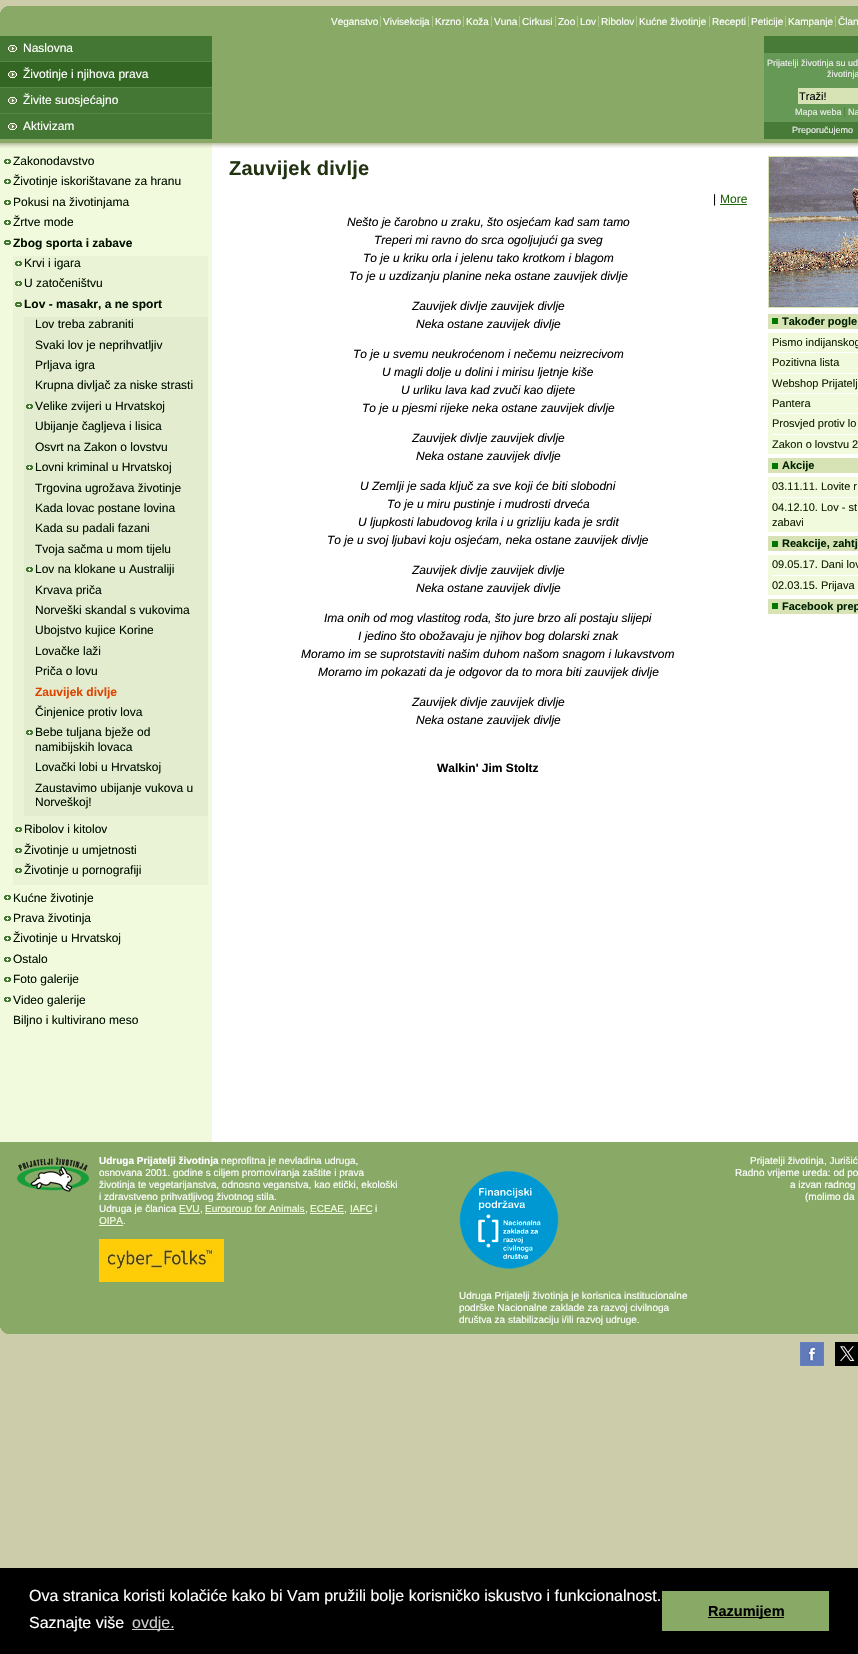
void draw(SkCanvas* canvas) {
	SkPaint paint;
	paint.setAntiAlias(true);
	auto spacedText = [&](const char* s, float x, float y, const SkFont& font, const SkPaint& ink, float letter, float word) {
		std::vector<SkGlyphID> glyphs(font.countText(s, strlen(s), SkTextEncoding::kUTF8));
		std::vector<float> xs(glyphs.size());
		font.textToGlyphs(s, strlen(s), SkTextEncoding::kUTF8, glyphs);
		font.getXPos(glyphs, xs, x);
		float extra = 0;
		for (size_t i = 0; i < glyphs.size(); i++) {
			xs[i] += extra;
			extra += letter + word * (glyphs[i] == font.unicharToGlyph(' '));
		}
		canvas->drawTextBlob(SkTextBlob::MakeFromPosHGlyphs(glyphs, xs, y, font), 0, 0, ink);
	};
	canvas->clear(0xffccccaa);
	paint.setColor(0xffffffff);
	canvas->drawRect(SkRect::MakeXYWH(212, 148, 646, 994), paint);
	paint.setColor(0xfff2fade);
	canvas->drawRect(SkRect::MakeXYWH(0, 148, 212, 994), paint);
	paint.setColor(0xff88aa66);
	canvas->drawRect(SkRect::MakeXYWH(0, 6, 858, 137), paint);
	canvas->drawImageRect(SkImages::DeferredFromEncodedData(SkData::MakeFromFileName("img1.png")), SkRect::MakeXYWH(0, 6, 858, 142), SkSamplingOptions());
	SkFont f1(fontMgr->matchFamilyStyle("Liberation Sans", SkFontStyle::Normal()), 10);
	f1.setSubpixel(true);
	paint.setColor(0xffffffff);
	canvas->drawString("Veganstvo", 331, 25, f1, paint);
	canvas->drawString("Vivisekcija", 383, 25, f1, paint);
	paint.setColor(0xffa8c888);
	canvas->drawRect(SkRect::MakeXYWH(380, 16, 1, 11), paint);
	paint.setColor(0xffffffff);
	canvas->drawString("Krzno", 435, 25, f1, paint);
	paint.setColor(0xffa8c888);
	canvas->drawRect(SkRect::MakeXYWH(432, 16, 1, 11), paint);
	paint.setColor(0xffffffff);
	canvas->drawString("Koža", 466, 25, f1, paint);
	paint.setColor(0xffa8c888);
	canvas->drawRect(SkRect::MakeXYWH(463, 16, 1, 11), paint);
	canvas->drawRect(SkRect::MakeXYWH(491, 16, 1, 11), paint);
	paint.setColor(0xffffffff);
	canvas->drawString("Vuna", 494, 25, f1, paint);
	paint.setColor(0xffa8c888);
	canvas->drawRect(SkRect::MakeXYWH(519, 16, 1, 11), paint);
	paint.setColor(0xffffffff);
	canvas->drawString("Cirkusi", 522, 25, f1, paint);
	paint.setColor(0xffa8c888);
	canvas->drawRect(SkRect::MakeXYWH(555, 16, 1, 11), paint);
	paint.setColor(0xffffffff);
	canvas->drawString("Zoo", 558, 25, f1, paint);
	paint.setColor(0xffa8c888);
	canvas->drawRect(SkRect::MakeXYWH(577, 16, 1, 11), paint);
	paint.setColor(0xffffffff);
	canvas->drawString("Lov", 580, 25, f1, paint);
	paint.setColor(0xffa8c888);
	canvas->drawRect(SkRect::MakeXYWH(598, 16, 1, 11), paint);
	paint.setColor(0xffffffff);
	canvas->drawString("Ribolov", 601, 25, f1, paint);
	paint.setColor(0xffa8c888);
	canvas->drawRect(SkRect::MakeXYWH(636, 16, 1, 11), paint);
	paint.setColor(0xffffffff);
	canvas->drawString("Kućne životinje", 639, 25, f1, paint);
	paint.setColor(0xffa8c888);
	canvas->drawRect(SkRect::MakeXYWH(709, 16, 1, 11), paint);
	paint.setColor(0xffffffff);
	canvas->drawString("Recepti", 712, 25, f1, paint);
	canvas->drawString("Peticije", 751, 25, f1, paint);
	paint.setColor(0xffa8c888);
	canvas->drawRect(SkRect::MakeXYWH(748, 16, 1, 11), paint);
	canvas->drawRect(SkRect::MakeXYWH(785, 16, 1, 11), paint);
	paint.setColor(0xffffffff);
	canvas->drawString("Kampanje", 788, 25, f1, paint);
	canvas->drawString("Član", 838, 25, f1, paint);
	paint.setColor(0xffa8c888);
	canvas->drawRect(SkRect::MakeXYWH(835, 16, 1, 11), paint);
	paint.setColor(0xff447733);
	canvas->drawRect(SkRect::MakeXYWH(0, 36, 212, 103), paint);
	canvas->drawImageRect(SkImages::DeferredFromEncodedData(SkData::MakeFromFileName("img2.png")), SkRect::MakeXYWH(8, 45, 9, 7), SkSamplingOptions());
	SkFont f2(fontMgr->matchFamilyStyle("Liberation Sans", SkFontStyle::Normal()), 12);
	f2.setSubpixel(true);
	paint.setColor(0xffffffff);
	canvas->drawString("Naslovna", 23, 52, f2, paint);
	paint.setColor(0xff558844);
	canvas->drawRect(SkRect::MakeXYWH(0, 61, 212, 1), paint);
	paint.setColor(0xff336622);
	canvas->drawRect(SkRect::MakeXYWH(0, 62, 212, 25), paint);
	canvas->drawImageRect(SkImages::DeferredFromEncodedData(SkData::MakeFromFileName("img3.png")), SkRect::MakeXYWH(8, 71, 9, 7), SkSamplingOptions());
	paint.setColor(0xffffffff);
	canvas->drawString("Životinje i njihova prava", 23, 78, f2, paint);
	paint.setColor(0xff558844);
	canvas->drawRect(SkRect::MakeXYWH(0, 87, 212, 1), paint);
	canvas->drawImageRect(SkImages::DeferredFromEncodedData(SkData::MakeFromFileName("img2.png")), SkRect::MakeXYWH(8, 97, 9, 7), SkSamplingOptions());
	paint.setColor(0xffffffff);
	canvas->drawString("Živite suosjećajno", 23, 104, f2, paint);
	paint.setColor(0xff558844);
	canvas->drawRect(SkRect::MakeXYWH(0, 113, 212, 1), paint);
	canvas->drawImageRect(SkImages::DeferredFromEncodedData(SkData::MakeFromFileName("img2.png")), SkRect::MakeXYWH(8, 123, 9, 7), SkSamplingOptions());
	paint.setColor(0xffffffff);
	canvas->drawString("Aktivizam", 23, 130, f2, paint);
	paint.setColor(0xff669955);
	canvas->drawRect(SkRect::MakeXYWH(764, 53, 94, 69), paint);
	paint.setColor(0xff487b37);
	canvas->drawRect(SkRect::MakeXYWH(764, 36, 94, 17), paint);
	SkFont f3(fontMgr->matchFamilyStyle("Liberation Sans", SkFontStyle::Normal()), 9);
	f3.setSubpixel(true);
	paint.setColor(0xffeeeeee);
	canvas->drawString("Prijatelji životinja su ud", 767, 66, f3, paint);
	canvas->drawString("životinja", 827, 77, f3, paint);
	paint.setColor(0xffd7e3b5);
	canvas->drawRect(SkRect::MakeXYWH(798, 88, 60, 16), paint);
	SkFont f4(fontMgr->matchFamilyStyle("Liberation Sans", SkFontStyle::Normal()), 11);
	f4.setSubpixel(true);
	paint.setColor(0xff000000);
	canvas->drawString("Traži!", 799, 100, f4, paint);
	paint.setColor(0xffeeeeee);
	canvas->drawString("Mapa weba", 795, 115, f3, paint);
	canvas->drawString("Na", 848, 115, f3, paint);
	paint.setColor(0xff528541);
	canvas->drawRect(SkRect::MakeXYWH(844, 107, 1, 10), paint);
	paint.setColor(0xff487b37);
	canvas->drawRect(SkRect::MakeXYWH(764, 122, 94, 17), paint);
	paint.setColor(0xffeeeeee);
	canvas->drawString("Preporučujemo", 792, 133, f3, paint);
	canvas->drawImageRect(SkImages::DeferredFromEncodedData(SkData::MakeFromFileName("img4.png")), SkRect::MakeXYWH(4, 159, 7, 5), SkSamplingOptions());
	paint.setColor(0xff001100);
	canvas->drawString("Zakonodavstvo", 13, 165, f2, paint);
	canvas->drawImageRect(SkImages::DeferredFromEncodedData(SkData::MakeFromFileName("img4.png")), SkRect::MakeXYWH(4, 179, 7, 5), SkSamplingOptions());
	canvas->drawString("Životinje iskorištavane za hranu", 13, 185, f2, paint);
	canvas->drawImageRect(SkImages::DeferredFromEncodedData(SkData::MakeFromFileName("img4.png")), SkRect::MakeXYWH(4, 200, 7, 5), SkSamplingOptions());
	canvas->drawString("Pokusi na životinjama", 13, 206, f2, paint);
	canvas->drawImageRect(SkImages::DeferredFromEncodedData(SkData::MakeFromFileName("img4.png")), SkRect::MakeXYWH(4, 220, 7, 5), SkSamplingOptions());
	canvas->drawString("Žrtve mode", 13, 226, f2, paint);
	canvas->drawImageRect(SkImages::DeferredFromEncodedData(SkData::MakeFromFileName("img5.png")), SkRect::MakeXYWH(4, 240, 7, 5), SkSamplingOptions());
	SkFont f5(fontMgr->matchFamilyStyle("Liberation Sans", SkFontStyle::Bold()), 12);
	f5.setSubpixel(true);
	canvas->drawString("Zbog sporta i zabave", 13, 247, f5, paint);
	paint.setColor(0xffebf3d7);
	canvas->drawRect(SkRect::MakeXYWH(13, 256, 195, 629), paint);
	canvas->drawImageRect(SkImages::DeferredFromEncodedData(SkData::MakeFromFileName("img6.png")), SkRect::MakeXYWH(15, 261, 7, 5), SkSamplingOptions());
	paint.setColor(0xff001100);
	canvas->drawString("Krvi i igara", 24, 267, f2, paint);
	canvas->drawImageRect(SkImages::DeferredFromEncodedData(SkData::MakeFromFileName("img6.png")), SkRect::MakeXYWH(15, 281, 7, 5), SkSamplingOptions());
	canvas->drawString("U zatočeništvu", 24, 287, f2, paint);
	canvas->drawImageRect(SkImages::DeferredFromEncodedData(SkData::MakeFromFileName("img7.png")), SkRect::MakeXYWH(15, 302, 7, 5), SkSamplingOptions());
	canvas->drawString("Lov - masakr, a ne sport", 24, 308, f5, paint);
	paint.setColor(0xffe4ecd0);
	canvas->drawRect(SkRect::MakeXYWH(24, 317, 184, 499), paint);
	paint.setColor(0xff001100);
	canvas->drawString("Lov treba zabraniti", 35, 328, f2, paint);
	canvas->drawString("Svaki lov je neprihvatljiv", 35, 349, f2, paint);
	canvas->drawString("Prljava igra", 35, 369, f2, paint);
	canvas->drawString("Krupna divljač za niske strasti", 35, 389, f2, paint);
	canvas->drawImageRect(SkImages::DeferredFromEncodedData(SkData::MakeFromFileName("img8.png")), SkRect::MakeXYWH(26, 404, 7, 5), SkSamplingOptions());
	canvas->drawString("Velike zvijeri u Hrvatskoj", 35, 410, f2, paint);
	canvas->drawString("Ubijanje čagljeva i lisica", 35, 430, f2, paint);
	canvas->drawString("Osvrt na Zakon o lovstvu", 35, 451, f2, paint);
	canvas->drawImageRect(SkImages::DeferredFromEncodedData(SkData::MakeFromFileName("img8.png")), SkRect::MakeXYWH(26, 465, 7, 5), SkSamplingOptions());
	canvas->drawString("Lovni kriminal u Hrvatskoj", 35, 471, f2, paint);
	canvas->drawString("Trgovina ugrožava životinje", 35, 492, f2, paint);
	canvas->drawString("Kada lovac postane lovina", 35, 512, f2, paint);
	canvas->drawString("Kada su padali fazani", 35, 532, f2, paint);
	canvas->drawString("Tvoja sačma u mom tijelu", 35, 553, f2, paint);
	canvas->drawImageRect(SkImages::DeferredFromEncodedData(SkData::MakeFromFileName("img8.png")), SkRect::MakeXYWH(26, 567, 7, 5), SkSamplingOptions());
	canvas->drawString("Lov na klokane u Australiji", 35, 573, f2, paint);
	canvas->drawString("Krvava priča", 35, 594, f2, paint);
	canvas->drawString("Norveški skandal s vukovima", 35, 614, f2, paint);
	canvas->drawString("Ubojstvo kujice Korine", 35, 634, f2, paint);
	canvas->drawString("Lovačke laži", 35, 655, f2, paint);
	canvas->drawString("Priča o lovu", 35, 675, f2, paint);
	paint.setColor(0xffdd4400);
	canvas->drawString("Zauvijek divlje", 35, 696, f5, paint);
	paint.setColor(0xff001100);
	canvas->drawString("Činjenice protiv lova", 35, 716, f2, paint);
	canvas->drawImageRect(SkImages::DeferredFromEncodedData(SkData::MakeFromFileName("img8.png")), SkRect::MakeXYWH(26, 730, 7, 5), SkSamplingOptions());
	canvas->drawString("Bebe tuljana bježe od", 35, 736, f2, paint);
	canvas->drawString("namibijskih lovaca", 35, 751, f2, paint);
	canvas->drawString("Lovački lobi u Hrvatskoj", 35, 771, f2, paint);
	canvas->drawString("Zaustavimo ubijanje vukova u", 35, 792, f2, paint);
	canvas->drawString("Norveškoj!", 35, 806, f2, paint);
	canvas->drawImageRect(SkImages::DeferredFromEncodedData(SkData::MakeFromFileName("img6.png")), SkRect::MakeXYWH(15, 827, 7, 5), SkSamplingOptions());
	canvas->drawString("Ribolov i kitolov", 24, 833, f2, paint);
	canvas->drawImageRect(SkImages::DeferredFromEncodedData(SkData::MakeFromFileName("img6.png")), SkRect::MakeXYWH(15, 848, 7, 5), SkSamplingOptions());
	canvas->drawString("Životinje u umjetnosti", 24, 854, f2, paint);
	canvas->drawImageRect(SkImages::DeferredFromEncodedData(SkData::MakeFromFileName("img6.png")), SkRect::MakeXYWH(15, 868, 7, 5), SkSamplingOptions());
	canvas->drawString("Životinje u pornografiji", 24, 874, f2, paint);
	canvas->drawImageRect(SkImages::DeferredFromEncodedData(SkData::MakeFromFileName("img4.png")), SkRect::MakeXYWH(4, 895, 7, 5), SkSamplingOptions());
	canvas->drawString("Kućne životinje", 13, 902, f2, paint);
	canvas->drawImageRect(SkImages::DeferredFromEncodedData(SkData::MakeFromFileName("img4.png")), SkRect::MakeXYWH(4, 916, 7, 5), SkSamplingOptions());
	canvas->drawString("Prava životinja", 13, 922, f2, paint);
	canvas->drawImageRect(SkImages::DeferredFromEncodedData(SkData::MakeFromFileName("img4.png")), SkRect::MakeXYWH(4, 936, 7, 5), SkSamplingOptions());
	canvas->drawString("Životinje u Hrvatskoj", 13, 942, f2, paint);
	canvas->drawImageRect(SkImages::DeferredFromEncodedData(SkData::MakeFromFileName("img4.png")), SkRect::MakeXYWH(4, 957, 7, 5), SkSamplingOptions());
	canvas->drawString("Ostalo", 13, 963, f2, paint);
	canvas->drawImageRect(SkImages::DeferredFromEncodedData(SkData::MakeFromFileName("img4.png")), SkRect::MakeXYWH(4, 977, 7, 5), SkSamplingOptions());
	canvas->drawString("Foto galerije", 13, 983, f2, paint);
	canvas->drawImageRect(SkImages::DeferredFromEncodedData(SkData::MakeFromFileName("img4.png")), SkRect::MakeXYWH(4, 997, 7, 5), SkSamplingOptions());
	canvas->drawString("Video galerije", 13, 1004, f2, paint);
	canvas->drawString("Biljno i kultivirano meso", 13, 1024, f2, paint);
	SkFont f6(fontMgr->matchFamilyStyle("Liberation Sans", SkFontStyle::Bold()), 20);
	f6.setSubpixel(true);
	paint.setColor(0xff223311);
	spacedText("Zauvijek divlje", 229, 175, f6, paint, 0.25, 0);
	paint.setColor(0xff000000);
	canvas->drawString("|", 713, 203, f2, paint);
	paint.setColor(0xff226611);
	canvas->drawString("More", 720, 203, f2, paint);
	canvas->drawRect(SkRect::MakeXYWH(720, 204, 27, 1), paint);
	SkFont f7(fontMgr->matchFamilyStyle("Liberation Sans", SkFontStyle::Italic()), 12);
	f7.setSubpixel(true);
	paint.setColor(0xff000000);
	canvas->drawString("Nešto je čarobno u zraku, što osjećam kad sam tamo", 347, 226, f7, paint);
	canvas->drawString("Treperi mi ravno do srca ogoljujući ga sveg", 374, 244, f7, paint);
	canvas->drawString("To je u kriku orla i jelenu tako krotkom i blagom", 363, 262, f7, paint);
	canvas->drawString("To je u uzdizanju planine neka ostane zauvijek divlje", 349, 280, f7, paint);
	canvas->drawString("Zauvijek divlje zauvijek divlje", 412, 310, f7, paint);
	canvas->drawString("Neka ostane zauvijek divlje", 416, 328, f7, paint);
	canvas->drawString("To je u svemu neukroćenom i nečemu neizrecivom", 353, 358, f7, paint);
	canvas->drawString("U magli dolje u dolini i mirisu ljetnje kiše", 382, 376, f7, paint);
	canvas->drawString("U urliku lava kad zvuči kao dijete", 401, 394, f7, paint);
	canvas->drawString("To je u pjesmi rijeke neka ostane zauvijek divlje", 362, 412, f7, paint);
	canvas->drawString("Zauvijek divlje zauvijek divlje", 412, 442, f7, paint);
	canvas->drawString("Neka ostane zauvijek divlje", 416, 460, f7, paint);
	canvas->drawString("U Zemlji je sada ključ za sve koji će biti slobodni", 360, 490, f7, paint);
	canvas->drawString("To je u miru pustinje i mudrosti drveća", 387, 508, f7, paint);
	canvas->drawString("U ljupkosti labudovog krila i u grizliju kada je srdit", 358, 526, f7, paint);
	canvas->drawString("To je u svoj ljubavi koju osjećam, neka ostane zauvijek divlje", 327, 544, f7, paint);
	canvas->drawString("Zauvijek divlje zauvijek divlje", 412, 574, f7, paint);
	canvas->drawString("Neka ostane zauvijek divlje", 416, 592, f7, paint);
	canvas->drawString("Ima onih od mog vlastitog roda, što jure brzo ali postaju slijepi", 324, 622, f7, paint);
	canvas->drawString("I jedino što obožavaju je njihov bog dolarski znak", 358, 640, f7, paint);
	canvas->drawString("Moramo im se suprotstaviti našim duhom našom snagom i lukavstvom", 301, 658, f7, paint);
	canvas->drawString("Moramo im pokazati da je odgovor da to mora biti zauvijek divlje", 318, 676, f7, paint);
	canvas->drawString("Zauvijek divlje zauvijek divlje", 412, 706, f7, paint);
	canvas->drawString("Neka ostane zauvijek divlje", 416, 724, f7, paint);
	canvas->drawString("Walkin' Jim Stoltz", 437, 772, f5, paint);
	paint.setStroke(true);
	paint.setStrokeWidth(1);
	paint.setColor(0xffd7e3b5);
	canvas->drawRect(SkRect::MakeXYWH(768.5, 156.5, 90, 151), paint);
	canvas->drawImageRect(SkImages::DeferredFromEncodedData(SkData::MakeFromFileName("img9.png")), SkRect::MakeXYWH(769, 157, 89, 150), SkSamplingOptions());
	paint.setStroke(false);
	canvas->drawRect(SkRect::MakeXYWH(768, 314, 90, 15), paint);
	paint.setColor(0xff007800);
	canvas->drawRect(SkRect::MakeXYWH(772, 318, 6, 6), paint);
	SkFont f8(fontMgr->matchFamilyStyle("Liberation Sans", SkFontStyle::Bold()), 11);
	f8.setSubpixel(true);
	paint.setColor(0xff002200);
	canvas->drawString("Također pogle", 782, 325, f8, paint);
	paint.setColor(0xfff2fade);
	canvas->drawRect(SkRect::MakeXYWH(768, 333, 90, 121), paint);
	paint.setColor(0xff112200);
	canvas->drawString("Pismo indijanskog", 772, 346, f4, paint);
	paint.setColor(0xffffffff);
	canvas->drawRect(SkRect::MakeXYWH(772, 352, 86, 1), paint);
	paint.setColor(0xff112200);
	canvas->drawString("Pozitivna lista", 772, 366, f4, paint);
	paint.setColor(0xffffffff);
	canvas->drawRect(SkRect::MakeXYWH(772, 373, 86, 1), paint);
	paint.setColor(0xff112200);
	canvas->drawString("Webshop Prijatelj", 772, 387, f4, paint);
	paint.setColor(0xffffffff);
	canvas->drawRect(SkRect::MakeXYWH(772, 393, 86, 1), paint);
	paint.setColor(0xff112200);
	canvas->drawString("Pantera", 772, 407, f4, paint);
	paint.setColor(0xffffffff);
	canvas->drawRect(SkRect::MakeXYWH(772, 413, 86, 1), paint);
	paint.setColor(0xff112200);
	canvas->drawString("Prosvjed protiv lo", 772, 427, f4, paint);
	paint.setColor(0xffffffff);
	canvas->drawRect(SkRect::MakeXYWH(772, 434, 86, 1), paint);
	paint.setColor(0xff112200);
	canvas->drawString("Zakon o lovstvu 2", 772, 448, f4, paint);
	paint.setColor(0xffd7e3b5);
	canvas->drawRect(SkRect::MakeXYWH(768, 458, 90, 15), paint);
	paint.setColor(0xff007800);
	canvas->drawRect(SkRect::MakeXYWH(772, 463, 6, 6), paint);
	paint.setColor(0xff002200);
	canvas->drawString("Akcije", 782, 469, f8, paint);
	paint.setColor(0xfff2fade);
	canvas->drawRect(SkRect::MakeXYWH(768, 477, 90, 55), paint);
	paint.setColor(0xff112200);
	canvas->drawString("03.11.11. Lovite r", 772, 490, f4, paint);
	paint.setColor(0xffffffff);
	canvas->drawRect(SkRect::MakeXYWH(772, 497, 86, 1), paint);
	paint.setColor(0xff112200);
	canvas->drawString("04.12.10. Lov - st", 772, 511, f4, paint);
	canvas->drawString("zabavi", 772, 526, f4, paint);
	paint.setColor(0xffd7e3b5);
	canvas->drawRect(SkRect::MakeXYWH(768, 536, 90, 15), paint);
	paint.setColor(0xff007800);
	canvas->drawRect(SkRect::MakeXYWH(772, 541, 6, 6), paint);
	paint.setColor(0xff002200);
	canvas->drawString("Reakcije, zahtj", 782, 547, f8, paint);
	paint.setColor(0xfff2fade);
	canvas->drawRect(SkRect::MakeXYWH(768, 555, 90, 40), paint);
	paint.setColor(0xff112200);
	canvas->drawString("09.05.17. Dani lov", 772, 568, f4, paint);
	paint.setColor(0xffffffff);
	canvas->drawRect(SkRect::MakeXYWH(772, 575, 86, 1), paint);
	paint.setColor(0xff112200);
	canvas->drawString("02.03.15. Prijava", 772, 589, f4, paint);
	paint.setColor(0xffd7e3b5);
	canvas->drawRect(SkRect::MakeXYWH(768, 599, 90, 15), paint);
	paint.setColor(0xff007800);
	canvas->drawRect(SkRect::MakeXYWH(772, 603, 6, 6), paint);
	paint.setColor(0xff002200);
	canvas->drawString("Facebook prep", 782, 610, f8, paint);
	paint.setColor(0xff88aa66);
	canvas->drawRect(SkRect::MakeXYWH(0, 1142, 858, 192), paint);
	canvas->drawImageRect(SkImages::DeferredFromEncodedData(SkData::MakeFromFileName("img10.png")), SkRect::MakeXYWH(0, 1328, 6, 6), SkSamplingOptions());
	canvas->drawImageRect(SkImages::DeferredFromEncodedData(SkData::MakeFromFileName("img11.png")), SkRect::MakeXYWH(17, 1157, 72, 35), SkSamplingOptions());
	SkFont f9(fontMgr->matchFamilyStyle("Liberation Sans", SkFontStyle::Bold()), 10);
	f9.setSubpixel(true);
	paint.setColor(0xffffffff);
	canvas->drawString("Udruga Prijatelji životinja", 99, 1164, f9, paint);
	canvas->drawString("neprofitna je nevladina udruga,", 221, 1164, f1, paint);
	canvas->drawString("osnovana 2001. godine s ciljem promoviranja zaštite i prava", 99, 1176, f1, paint);
	canvas->drawString("životinja te vegetarijanstva, odnosno veganstva, kao etički, ekološki", 99, 1188, f1, paint);
	canvas->drawString("i zdravstveno prihvatljivog životnog stila.", 99, 1200, f1, paint);
	canvas->drawString("Udruga je članica", 99, 1212, f1, paint);
	paint.setColor(0xfff5ffe1);
	canvas->drawString("EVU", 179, 1212, f1, paint);
	canvas->drawRect(SkRect::MakeXYWH(179, 1213, 21, 1), paint);
	paint.setColor(0xffffffff);
	canvas->drawString(",", 200, 1212, f1, paint);
	paint.setColor(0xfff5ffe1);
	canvas->drawRect(SkRect::MakeXYWH(205, 1213, 100, 1), paint);
	canvas->drawString("Eurogroup for Animals", 205, 1212, f1, paint);
	paint.setColor(0xffffffff);
	canvas->drawString(",", 305, 1212, f1, paint);
	paint.setColor(0xfff5ffe1);
	canvas->drawString("ECEAE", 310, 1212, f1, paint);
	canvas->drawRect(SkRect::MakeXYWH(310, 1213, 34, 1), paint);
	paint.setColor(0xffffffff);
	canvas->drawString(",", 344, 1212, f1, paint);
	paint.setColor(0xfff5ffe1);
	canvas->drawString("IAFC", 350, 1212, f1, paint);
	canvas->drawRect(SkRect::MakeXYWH(350, 1213, 22, 1), paint);
	paint.setColor(0xffffffff);
	canvas->drawString("i", 375, 1212, f1, paint);
	paint.setColor(0xfff5ffe1);
	canvas->drawString("OIPA", 99, 1224, f1, paint);
	canvas->drawRect(SkRect::MakeXYWH(99, 1225, 24, 1), paint);
	paint.setColor(0xffffffff);
	canvas->drawString(".", 123, 1224, f1, paint);
	canvas->drawImageRect(SkImages::DeferredFromEncodedData(SkData::MakeFromFileName("img12.png")), SkRect::MakeXYWH(99, 1239, 125, 43), SkSamplingOptions());
	canvas->drawString("Prijatelji životinja, Jurišić", 750, 1164, f1, paint);
	canvas->drawString("Radno vrijeme ureda: od po", 735, 1176, f1, paint);
	canvas->drawString("a izvan radnog", 790, 1188, f1, paint);
	canvas->drawString("(molimo da", 805, 1200, f1, paint);
	canvas->drawImageRect(SkImages::DeferredFromEncodedData(SkData::MakeFromFileName("img13.png")), SkRect::MakeXYWH(459, 1171, 100, 98), SkSamplingOptions());
	canvas->drawString("Udruga Prijatelji životinja je korisnica institucionalne", 459, 1299, f1, paint);
	canvas->drawString("podrške Nacionalne zaklade za razvoj civilnoga", 459, 1311, f1, paint);
	canvas->drawString("društva za stabilizaciju i/ili razvoj udruge.", 459, 1323, f1, paint);
	canvas->drawImageRect(SkImages::DeferredFromEncodedData(SkData::MakeFromFileName("img14.png")), SkRect::MakeXYWH(800, 1342, 24, 24), SkSamplingOptions());
	canvas->drawImageRect(SkImages::DeferredFromEncodedData(SkData::MakeFromFileName("img15.png")), SkRect::MakeXYWH(835, 1342, 23, 24), SkSamplingOptions());
	paint.setColor(0xff000000);
	canvas->drawRect(SkRect::MakeXYWH(0, 1568, 858, 86), paint);
	SkFont f10(fontMgr->matchFamilyStyle("Liberation Sans", SkFontStyle::Normal()), 16);
	f10.setSubpixel(true);
	paint.setColor(0xffffffff);
	canvas->drawString("Ova stranica koristi kolačiće kako bi Vam pružili bolje korisničko iskustvo i funkcionalnost.", 29, 1601, f10, paint);
	canvas->drawString("Saznajte više", 29, 1628, f10, paint);
	paint.setColor(0xffcccccc);
	canvas->drawRect(SkRect::MakeXYWH(132, 1629, 42, 1), paint);
	canvas->drawString("ovdje.", 132, 1628, f10, paint);
	paint.setColor(0xff88aa66);
	canvas->drawRect(SkRect::MakeXYWH(662, 1591, 167, 40), paint);
	paint.setColor(0xff000000);
	canvas->drawRect(SkRect::MakeXYWH(708, 1617, 76, 1), paint);
	SkFont f11(fontMgr->matchFamilyStyle("Liberation Sans", SkFontStyle::Bold()), 14.5);
	f11.setSubpixel(true);
	canvas->drawString("Razumijem", 708, 1616, f11, paint);
}
